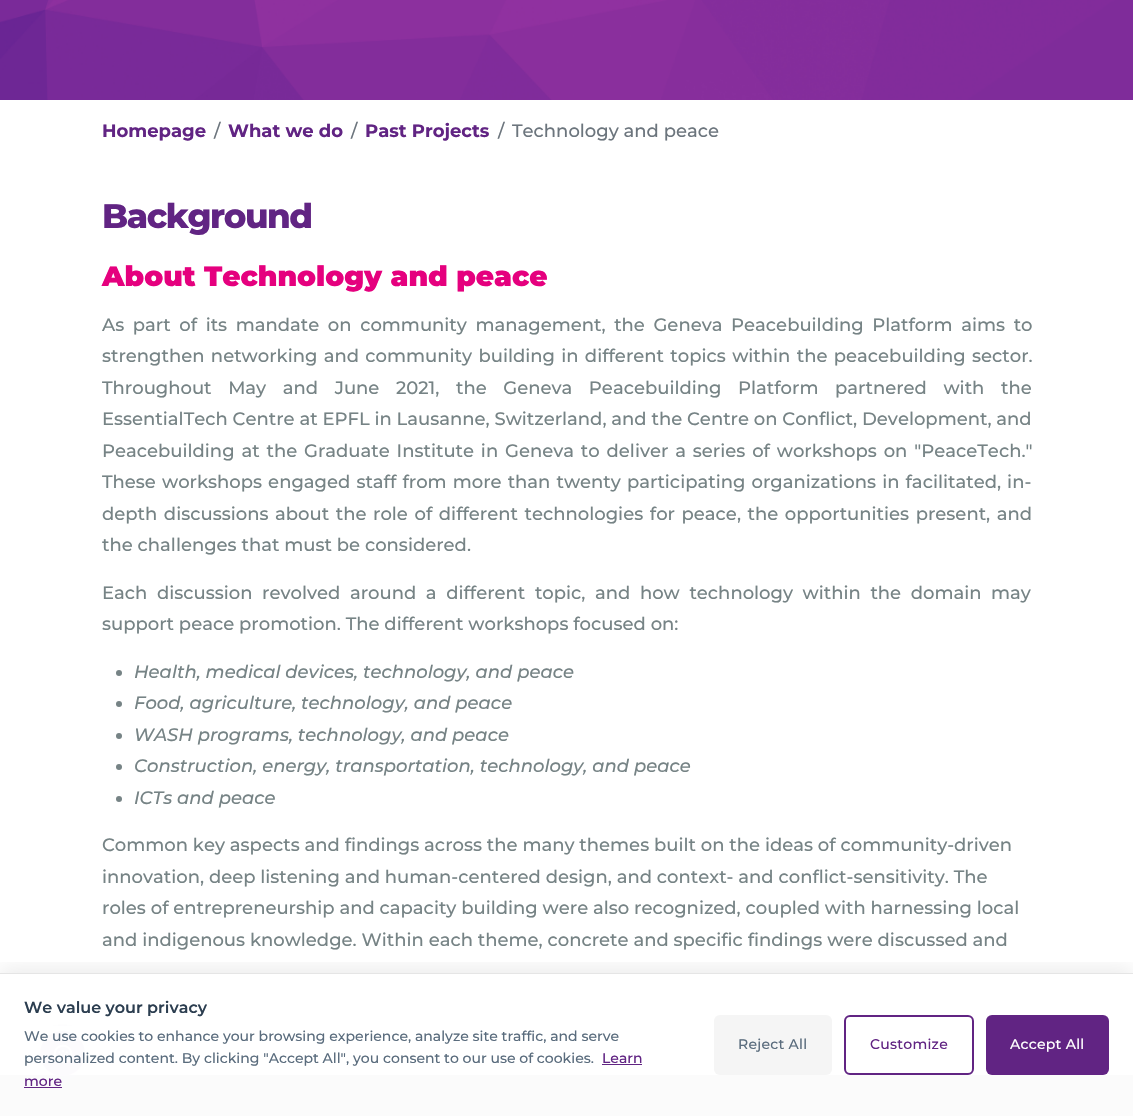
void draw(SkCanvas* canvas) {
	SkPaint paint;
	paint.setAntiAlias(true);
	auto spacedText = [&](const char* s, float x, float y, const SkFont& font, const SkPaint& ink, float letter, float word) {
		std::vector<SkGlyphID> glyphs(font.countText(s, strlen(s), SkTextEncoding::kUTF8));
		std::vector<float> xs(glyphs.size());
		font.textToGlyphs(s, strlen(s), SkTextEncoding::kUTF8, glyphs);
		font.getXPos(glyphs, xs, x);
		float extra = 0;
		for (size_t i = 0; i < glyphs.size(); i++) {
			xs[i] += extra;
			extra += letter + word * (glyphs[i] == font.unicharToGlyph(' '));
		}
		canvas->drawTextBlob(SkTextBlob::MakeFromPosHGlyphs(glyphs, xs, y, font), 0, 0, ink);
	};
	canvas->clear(0xffffffff);
	canvas->drawImageRect(SkImages::DeferredFromEncodedData(SkData::MakeFromFileName("img1.png")), SkRect::MakeXYWH(0, 0, 1133, 100), SkSamplingOptions());
	SkFont f1(fontMgr->matchFamilyStyle("Montserrat", SkFontStyle::Bold()), 18);
	f1.setSubpixel(true);
	paint.setColor(0xff612483);
	canvas->drawString("Homepage", 102, 137, f1, paint);
	SkFont f2(fontMgr->matchFamilyStyle("Montserrat", SkFontStyle(500, SkFontStyle::kNormal_Width, SkFontStyle::kUpright_Slant)), 18);
	f2.setSubpixel(true);
	paint.setColor(0xff6c757d);
	canvas->drawString("/", 214, 137, f2, paint);
	paint.setColor(0xff612483);
	canvas->drawString("What we do", 228, 137, f1, paint);
	paint.setColor(0xff6c757d);
	canvas->drawString("/", 351, 137, f2, paint);
	paint.setColor(0xff612483);
	canvas->drawString("Past Projects", 365, 137, f1, paint);
	paint.setColor(0xff6c757d);
	canvas->drawString("/", 498, 137, f2, paint);
	canvas->drawString("Technology and peace", 512, 137, f2, paint);
	SkFont f3(fontMgr->matchFamilyStyle("Montserrat", SkFontStyle(800, SkFontStyle::kNormal_Width, SkFontStyle::kUpright_Slant)), 34);
	f3.setSubpixel(true);
	paint.setColor(0xff612483);
	spacedText("Background", 102, 228, f3, paint, -1.4, 0);
	SkFont f4(fontMgr->matchFamilyStyle("Montserrat", SkFontStyle(900, SkFontStyle::kNormal_Width, SkFontStyle::kUpright_Slant)), 28);
	f4.setSubpixel(true);
	paint.setColor(0xffe5007e);
	canvas->drawString("About Technology and peace", 102, 286, f4, paint);
	paint.setColor(0xff768385);
	spacedText("As part of its mandate on community management, the Geneva Peacebuilding Platform aims to", 102, 331, f2, paint, 0, 3.75);
	spacedText("strengthen networking and community building in different topics within the peacebuilding sector.", 102, 362, f2, paint, 0, 1.5);
	spacedText("Throughout May and June 2021, the Geneva Peacebuilding Platform partnered with the", 102, 394, f2, paint, 0, 11.75);
	canvas->drawString("EssentialTech Centre at EPFL in Lausanne, Switzerland, and the Centre on Conflict, Development, and", 102, 425, f2, paint);
	spacedText("Peacebuilding at the Graduate Institute in Geneva to deliver a series of workshops on \"PeaceTech.\"", 102, 457, f2, paint, 0, 2);
	spacedText("These workshops engaged staff from more than twenty participating organizations in facilitated, in-", 102, 488, f2, paint, 0, 1.25);
	spacedText("depth discussions about the role of different technologies for peace, the opportunities present, and", 102, 520, f2, paint, 0, 1.75);
	canvas->drawString("the challenges that must be considered.", 102, 551, f2, paint);
	spacedText("Each discussion revolved around a different topic, and how technology within the domain may", 102, 599, f2, paint, 0, 4.75);
	canvas->drawString("support peace promotion. The different workshops focused on:", 102, 630, f2, paint);
	canvas->drawCircle(119, 673, 3, paint);
	SkFont f5(fontMgr->matchFamilyStyle("Montserrat", SkFontStyle(500, SkFontStyle::kNormal_Width, SkFontStyle::kItalic_Slant)), 18);
	f5.setSubpixel(true);
	canvas->drawString("Health, medical devices, technology, and peace", 134, 678, f5, paint);
	canvas->drawCircle(119, 704, 3, paint);
	canvas->drawString("Food, agriculture, technology, and peace", 134, 709, f5, paint);
	canvas->drawCircle(119, 736, 3, paint);
	canvas->drawString("WASH programs, technology, and peace", 134, 741, f5, paint);
	canvas->drawCircle(119, 767, 3, paint);
	canvas->drawString("Construction, energy, transportation, technology, and peace", 134, 772, f5, paint);
	canvas->drawCircle(119, 799, 3, paint);
	canvas->drawString("ICTs and peace", 134, 804, f5, paint);
	canvas->drawString("Common key aspects and findings across the many themes built on the ideas of community-driven", 102, 851, f2, paint);
	canvas->drawString("innovation, deep listening and human-centered design, and context- and conflict-sensitivity. The", 102, 883, f2, paint);
	canvas->drawString("roles of entrepreneurship and capacity building were also recognized, coupled with harnessing local", 102, 914, f2, paint);
	canvas->drawString("and indigenous knowledge. Within each theme, concrete and specific findings were discussed and", 102, 946, f2, paint);
	paint.setColor(0xff25282a);
	canvas->drawRect(SkRect::MakeXYWH(0, 1075, 1133, 41), paint);
	paint.setColor(0x66612483);
	paint.setMaskFilter(SkMaskFilter::MakeBlur(kNormal_SkBlurStyle, 4));
	canvas->drawRoundRect(SkRect::MakeXYWH(40, 1033, 45, 45), 22.5, 22.5, paint);
	paint.setMaskFilter(nullptr);
	paint.setColor(0xff612483);
	canvas->drawCircle(62.5, 1053.5, 22.5, paint);
	canvas->drawImageRect(SkImages::DeferredFromEncodedData(SkData::MakeFromFileName("img2.png")), SkRect::MakeXYWH(53, 1044, 20, 20), SkSamplingOptions());
	canvas->drawCircle(1070.5, 1053.5, 22.5, paint);
	canvas->save();
	canvas->clipRect(SkRect::MakeXYWH(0, 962, 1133, 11));
	paint.setColor(0x14000000);
	paint.setMaskFilter(SkMaskFilter::MakeBlur(kNormal_SkBlurStyle, 10));
	canvas->drawRect(SkRect::MakeXYWH(0, 969, 1133, 143), paint);
	paint.setMaskFilter(nullptr);
	canvas->restore();
	paint.setColor(0xfaffffff);
	canvas->drawRect(SkRect::MakeXYWH(0, 1026, 1133, 90), paint);
	paint.setColor(0x1a000000);
	canvas->drawRect(SkRect::MakeXYWH(0, 973, 1133, 1), paint);
	SkFont f6(fontMgr->matchFamilyStyle("Montserrat", SkFontStyle(600, SkFontStyle::kNormal_Width, SkFontStyle::kUpright_Slant)), 16);
	f6.setSubpixel(true);
	paint.setColor(0xff2c3e50);
	canvas->drawString("We value your privacy", 24, 1013, f6, paint);
	SkFont f7(fontMgr->matchFamilyStyle("Montserrat", SkFontStyle(500, SkFontStyle::kNormal_Width, SkFontStyle::kUpright_Slant)), 14);
	f7.setSubpixel(true);
	paint.setColor(0xff5a6c7d);
	canvas->drawString("We use cookies to enhance your browsing experience, analyze site traffic, and serve", 24, 1041, f7, paint);
	canvas->drawString("personalized content. By clicking \"Accept All\", you consent to our use of cookies.", 24, 1063, f7, paint);
	paint.setColor(0xff612483);
	canvas->drawString("Learn", 602, 1063, f7, paint);
	canvas->drawRect(SkRect::MakeXYWH(602, 1064, 40, 1), paint);
	canvas->drawString("more", 24, 1086, f7, paint);
	canvas->drawRect(SkRect::MakeXYWH(24, 1087, 38, 1), paint);
	paint.setColor(0xfff5f5f5);
	canvas->drawRoundRect(SkRect::MakeXYWH(714, 1015, 118, 60), 6, 6, paint);
	paint.setColor(0xff5a6c7d);
	spacedText("Reject All", 738, 1049, f7, paint, 0.25, 0);
	paint.setStroke(true);
	paint.setStrokeWidth(2);
	paint.setColor(0xff612483);
	canvas->drawRoundRect(SkRect::MakeXYWH(845, 1016, 128, 58), 5, 5, paint);
	paint.setStroke(false);
	spacedText("Customize", 870, 1049, f7, paint, 0.25, 0);
	canvas->drawRoundRect(SkRect::MakeXYWH(986, 1015, 123, 60), 6, 6, paint);
	paint.setColor(0xffffffff);
	spacedText("Accept All", 1010, 1049, f7, paint, 0.25, 0);
}
